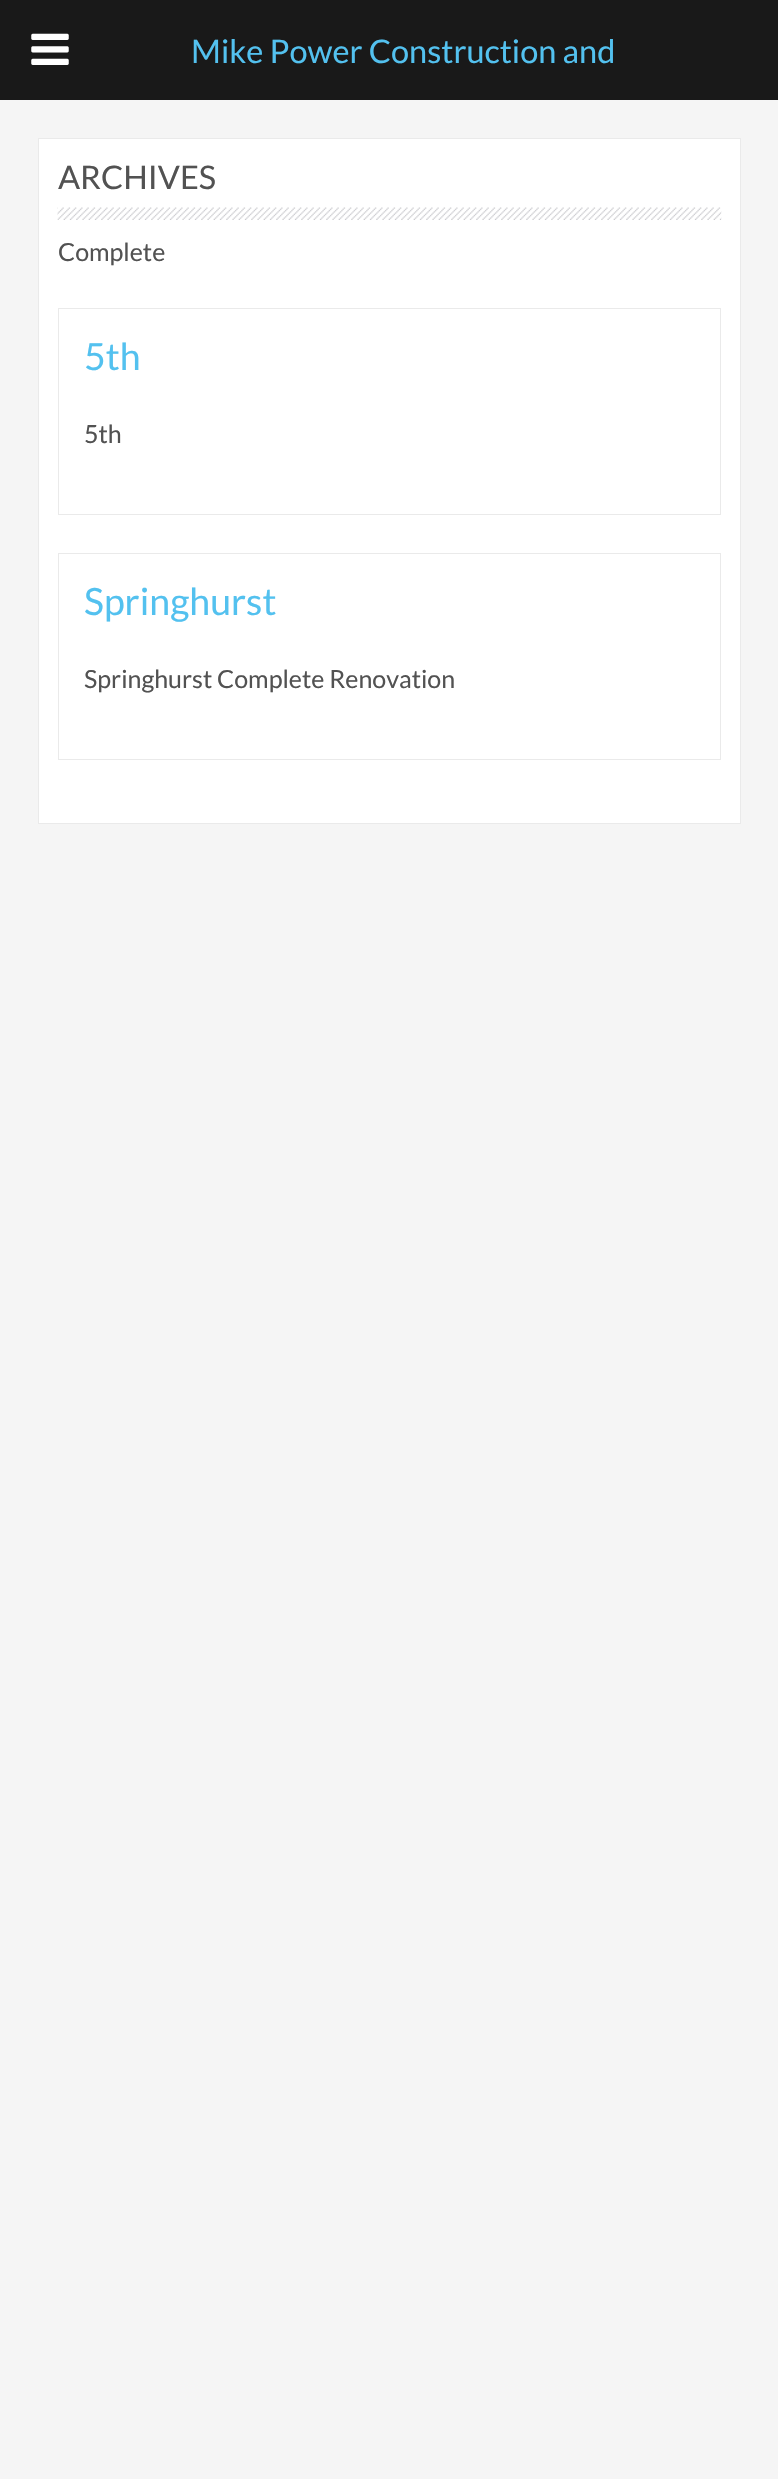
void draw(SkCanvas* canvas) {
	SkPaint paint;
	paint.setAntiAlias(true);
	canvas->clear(0xfff5f5f5);
	paint.setColor(0xff191919);
	canvas->drawRect(SkRect::MakeXYWH(0, 0, 778, 100), paint);
	canvas->drawImageRect(SkImages::DeferredFromEncodedData(SkData::MakeFromFileName("img1.png")), SkRect::MakeXYWH(31, 33, 38, 32), SkSamplingOptions());
	SkFont f1(fontMgr->matchFamilyStyle("Lato", SkFontStyle::Normal()), 32.5);
	f1.setSubpixel(true);
	paint.setColor(0xff53c1ef);
	canvas->drawString("Mike Power Construction and", 191, 63, f1, paint);
	paint.setColor(0xffffffff);
	canvas->drawRect(SkRect::MakeXYWH(38.5, 138.5, 702, 685), paint);
	paint.setStroke(true);
	paint.setStrokeWidth(1);
	paint.setColor(0xffeaeaea);
	canvas->drawRect(SkRect::MakeXYWH(38.5, 138.5, 702, 685), paint);
	paint.setStroke(false);
	paint.setColor(0xff525252);
	canvas->drawString("ARCHIVES", 58, 189, f1, paint);
	canvas->drawImageRect(SkImages::DeferredFromEncodedData(SkData::MakeFromFileName("img2.png")), SkRect::MakeXYWH(57, 207, 665, 13), SkSamplingOptions());
	SkFont f2(fontMgr->matchFamilyStyle("Lato", SkFontStyle::Normal()), 25);
	f2.setSubpixel(true);
	canvas->drawString("Complete", 58, 261, f2, paint);
	paint.setStroke(true);
	paint.setColor(0xffeaeaea);
	canvas->drawRect(SkRect::MakeXYWH(58.5, 308.5, 662, 206), paint);
	SkFont f3(fontMgr->matchFamilyStyle("Lato", SkFontStyle::Normal()), 37.5);
	f3.setSubpixel(true);
	paint.setStroke(false);
	paint.setColor(0xff53c1ef);
	canvas->drawString("5th", 84, 370, f3, paint);
	paint.setColor(0xff525252);
	canvas->drawString("5th", 84, 443, f2, paint);
	paint.setStroke(true);
	paint.setColor(0xffeaeaea);
	canvas->drawRect(SkRect::MakeXYWH(58.5, 553.5, 662, 206), paint);
	paint.setStroke(false);
	paint.setColor(0xff53c1ef);
	canvas->drawString("Springhurst", 84, 615, f3, paint);
	paint.setColor(0xff525252);
	canvas->drawString("Springhurst Complete Renovation", 84, 688, f2, paint);
}
